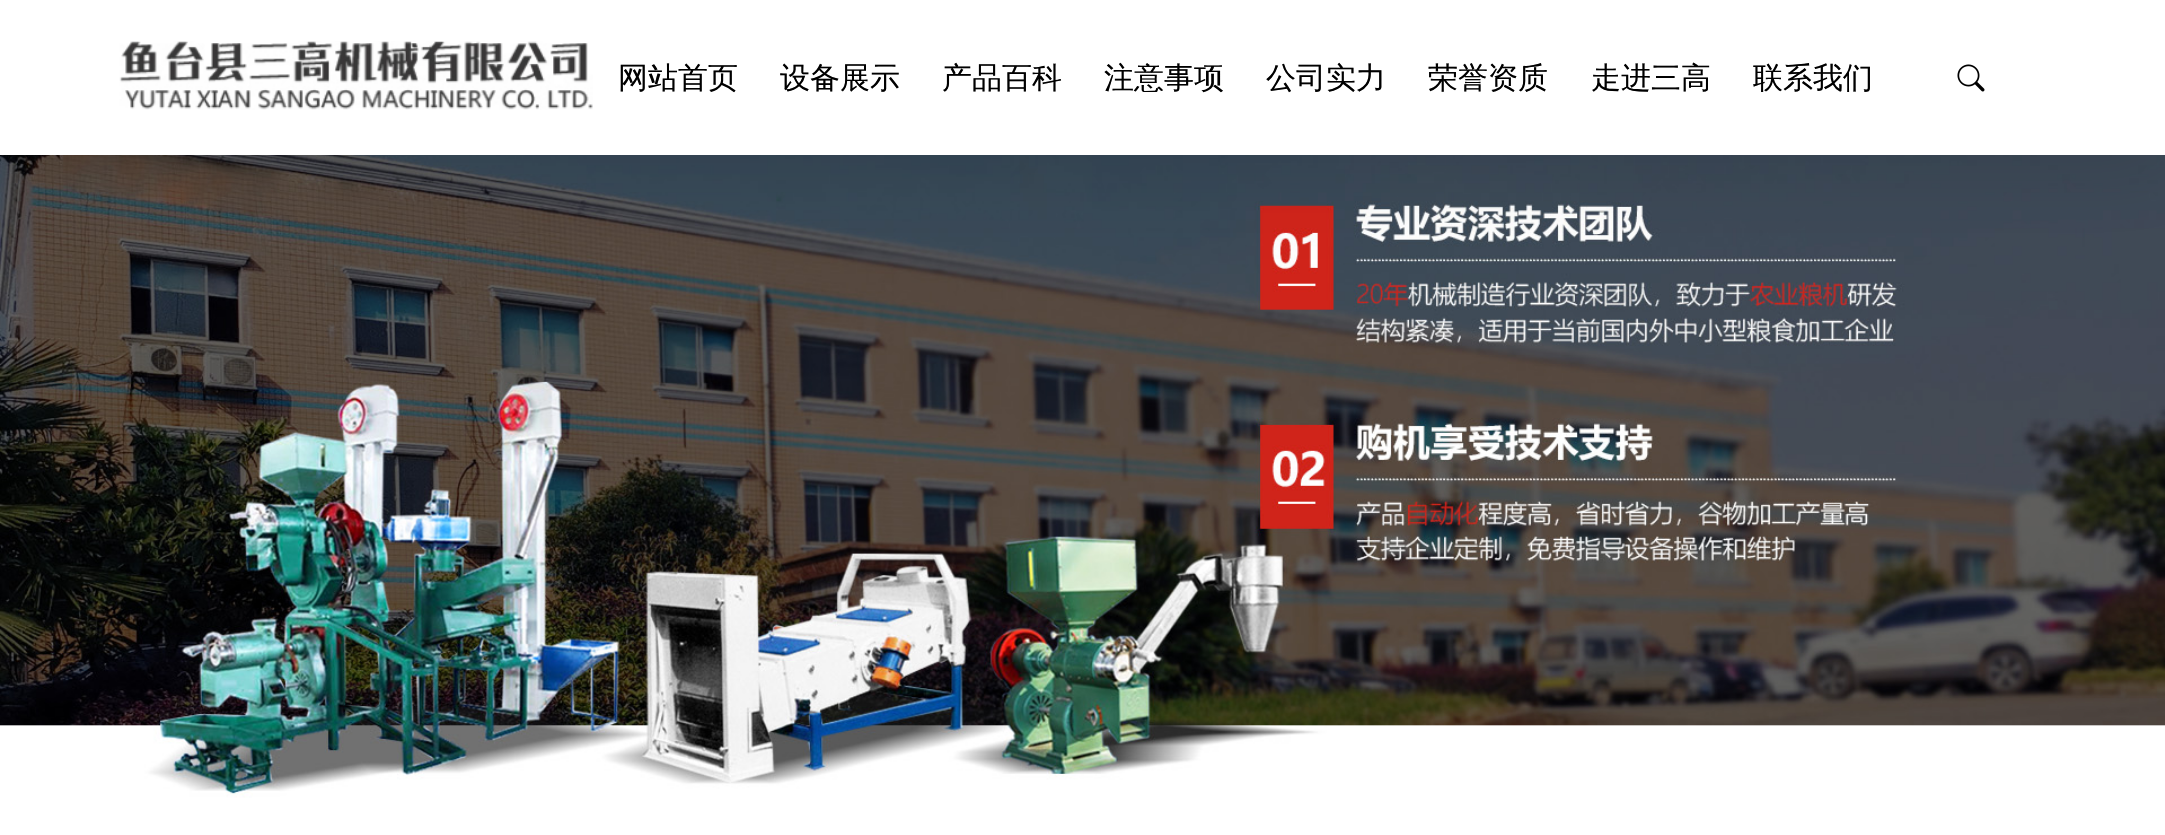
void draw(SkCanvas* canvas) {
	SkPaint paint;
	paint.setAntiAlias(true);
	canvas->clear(0xffffffff);
	canvas->drawImageRect(SkImages::DeferredFromEncodedData(SkData::MakeFromFileName("img3.png")), SkRect::MakeXYWH(0, 155, 2165, 643), SkSamplingOptions());
	paint.setColor(0x1a000000);
	paint.setMaskFilter(SkMaskFilter::MakeBlur(kNormal_SkBlurStyle, 37.5));
	canvas->drawRect(SkRect::MakeXYWH(-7, 0, 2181, 170), paint);
	paint.setMaskFilter(nullptr);
	paint.setColor(0xffffffff);
	canvas->drawRect(SkRect::MakeXYWH(0, 0, 2165, 155), paint);
	canvas->drawImageRect(SkImages::DeferredFromEncodedData(SkData::MakeFromFileName("img1.png")), SkRect::MakeXYWH(119, 41, 474, 69), SkSamplingOptions());
	SkFont f1(fontMgr->matchFamilyStyle("WenQuanYi Zen Hei", SkFontStyle(500, SkFontStyle::kNormal_Width, SkFontStyle::kUpright_Slant)), 30);
	f1.setSubpixel(true);
	paint.setColor(0xff000000);
	canvas->drawString("网站首页", 618, 88, f1, paint);
	canvas->drawString("设备展示", 780, 88, f1, paint);
	canvas->drawString("产品百科", 942, 88, f1, paint);
	canvas->drawString("注意事项", 1104, 88, f1, paint);
	canvas->drawString("公司实力", 1266, 88, f1, paint);
	canvas->drawString("荣誉资质", 1428, 88, f1, paint);
	canvas->drawString("走进三高", 1591, 88, f1, paint);
	canvas->drawString("联系我们", 1753, 88, f1, paint);
	canvas->drawImageRect(SkImages::DeferredFromEncodedData(SkData::MakeFromFileName("img2.png")), SkRect::MakeXYWH(1957, 64, 28, 28), SkSamplingOptions());
}
